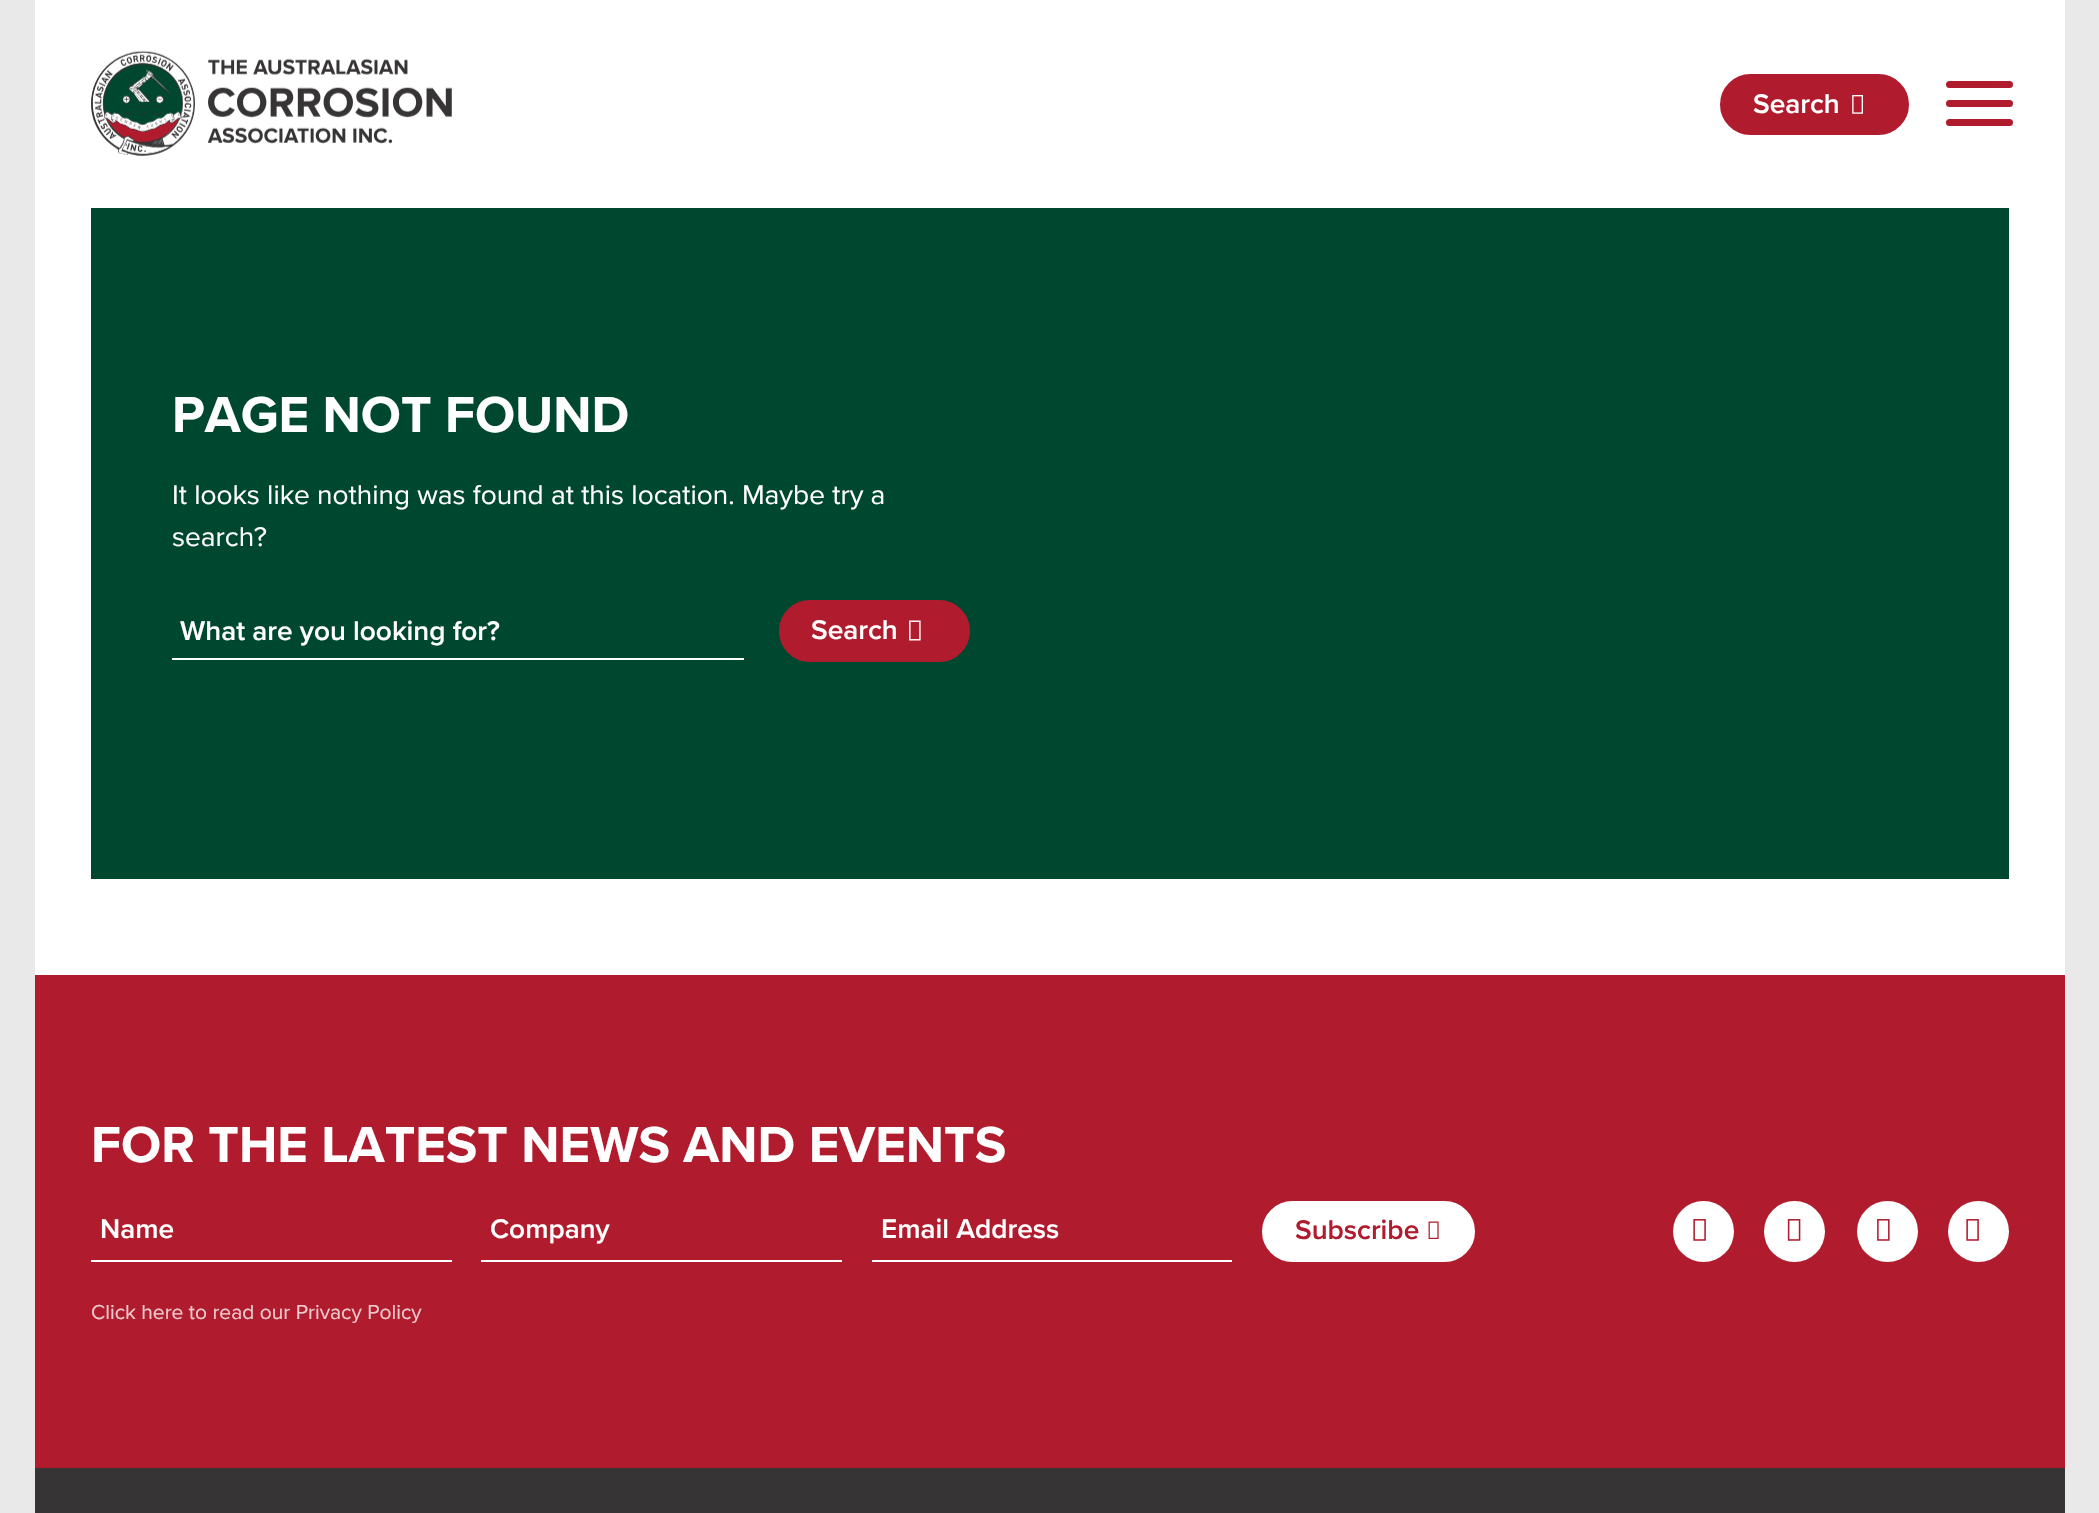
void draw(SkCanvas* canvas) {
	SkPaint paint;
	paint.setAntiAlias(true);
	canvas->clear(0xffe9e9e9);
	paint.setColor(0xffffffff);
	canvas->drawRect(SkRect::MakeXYWH(35, 0, 2030, 975), paint);
	canvas->drawImageRect(SkImages::DeferredFromEncodedData(SkData::MakeFromFileName("img1.png")), SkRect::MakeXYWH(91, 50, 361, 106), SkSamplingOptions());
	paint.setColor(0xffb01c2e);
	canvas->drawRoundRect(SkRect::MakeXYWH(1721, 75, 187, 59), 29.5, 29.5, paint);
	paint.setStroke(true);
	paint.setStrokeWidth(2);
	canvas->drawRoundRect(SkRect::MakeXYWH(1721, 75, 187, 59), 29.5, 29.5, paint);
	SkFont f1(fontMgr->matchFamilyStyle("Proxima Nova", SkFontStyle(600, SkFontStyle::kNormal_Width, SkFontStyle::kUpright_Slant)), 28);
	f1.setSubpixel(true);
	paint.setStroke(false);
	paint.setColor(0xffffffff);
	canvas->drawString("Search", 1753, 113, f1, paint);
	canvas->drawImageRect(SkImages::DeferredFromEncodedData(SkData::MakeFromFileName("img2.png")), SkRect::MakeXYWH(1852, 95, 11, 19), SkSamplingOptions());
	paint.setColor(0xffb01c2e);
	canvas->drawRoundRect(SkRect::MakeXYWH(1946, 100, 67, 7), 3.5, 3.5, paint);
	canvas->drawRoundRect(SkRect::MakeXYWH(1946, 81, 67, 7), 3.5, 3.5, paint);
	canvas->drawRoundRect(SkRect::MakeXYWH(1946, 119, 67, 7), 3.5, 3.5, paint);
	paint.setColor(0xff004730);
	canvas->drawRect(SkRect::MakeXYWH(91, 208, 1918, 671), paint);
	SkFont f2(fontMgr->matchFamilyStyle("Proxima Nova", SkFontStyle::Bold()), 52.5);
	f2.setSubpixel(true);
	paint.setColor(0xffffffff);
	canvas->drawString("PAGE NOT FOUND", 172, 432, f2, paint);
	SkFont f3(fontMgr->matchFamilyStyle("Proxima Nova", SkFontStyle::Normal()), 28);
	f3.setSubpixel(true);
	canvas->drawString("It looks like nothing was found at this location. Maybe try a", 172, 504, f3, paint);
	canvas->drawString("search?", 172, 546, f3, paint);
	canvas->drawRect(SkRect::MakeXYWH(172, 658, 572, 2), paint);
	canvas->drawString("What are you looking for?", 180, 640, f1, paint);
	paint.setColor(0xffb01c2e);
	canvas->drawRoundRect(SkRect::MakeXYWH(780, 601, 189, 60), 30, 30, paint);
	paint.setStroke(true);
	canvas->drawRoundRect(SkRect::MakeXYWH(780, 601, 189, 60), 30, 30, paint);
	paint.setStroke(false);
	paint.setColor(0xffffffff);
	canvas->drawString("Search", 811, 639, f1, paint);
	canvas->drawImageRect(SkImages::DeferredFromEncodedData(SkData::MakeFromFileName("img3.png")), SkRect::MakeXYWH(909, 620, 12, 21), SkSamplingOptions());
	paint.setColor(0xffb01c2e);
	canvas->drawRect(SkRect::MakeXYWH(35, 975, 2030, 493), paint);
	paint.setColor(0xffffffff);
	canvas->drawString("FOR THE LATEST NEWS AND EVENTS", 91, 1162, f2, paint);
	canvas->drawRect(SkRect::MakeXYWH(91, 1260, 361, 2), paint);
	canvas->drawString("Name", 100, 1238, f1, paint);
	canvas->drawRect(SkRect::MakeXYWH(481, 1260, 361, 2), paint);
	canvas->drawString("Company", 490, 1238, f1, paint);
	canvas->drawRect(SkRect::MakeXYWH(872, 1260, 360, 2), paint);
	canvas->drawString("Email Address", 881, 1238, f1, paint);
	canvas->drawRoundRect(SkRect::MakeXYWH(1263, 1202, 211, 59), 29.5, 29.5, paint);
	paint.setStroke(true);
	canvas->drawRoundRect(SkRect::MakeXYWH(1263, 1202, 211, 59), 29.5, 29.5, paint);
	paint.setStroke(false);
	paint.setColor(0xffb01c2e);
	canvas->drawString("Subscribe", 1295, 1239, f1, paint);
	canvas->drawImageRect(SkImages::DeferredFromEncodedData(SkData::MakeFromFileName("img4.png")), SkRect::MakeXYWH(1428, 1221, 11, 18), SkSamplingOptions());
	SkFont f4(fontMgr->matchFamilyStyle("Proxima Nova", SkFontStyle::Normal()), 21);
	f4.setSubpixel(true);
	paint.setColor(0xffecc9cd);
	canvas->drawString("Click here to read our Privacy Policy", 91, 1319, f4, paint);
	paint.setColor(0xffffffff);
	canvas->drawCircle(1703.5, 1231.5, 30.5, paint);
	canvas->drawImageRect(SkImages::DeferredFromEncodedData(SkData::MakeFromFileName("img5.png")), SkRect::MakeXYWH(1693, 1219, 13, 22), SkSamplingOptions());
	canvas->drawCircle(1794.5, 1231.5, 30.5, paint);
	canvas->drawImageRect(SkImages::DeferredFromEncodedData(SkData::MakeFromFileName("img6.png")), SkRect::MakeXYWH(1787, 1219, 14, 22), SkSamplingOptions());
	canvas->drawCircle(1887.5, 1231.5, 30.5, paint);
	canvas->drawImageRect(SkImages::DeferredFromEncodedData(SkData::MakeFromFileName("img7.png")), SkRect::MakeXYWH(1877, 1219, 13, 22), SkSamplingOptions());
	canvas->drawCircle(1978.5, 1231.5, 30.5, paint);
	canvas->drawImageRect(SkImages::DeferredFromEncodedData(SkData::MakeFromFileName("img5.png")), SkRect::MakeXYWH(1966, 1219, 13, 22), SkSamplingOptions());
	paint.setColor(0xff373435);
	canvas->drawRect(SkRect::MakeXYWH(35, 1468, 2030, 45), paint);
}
